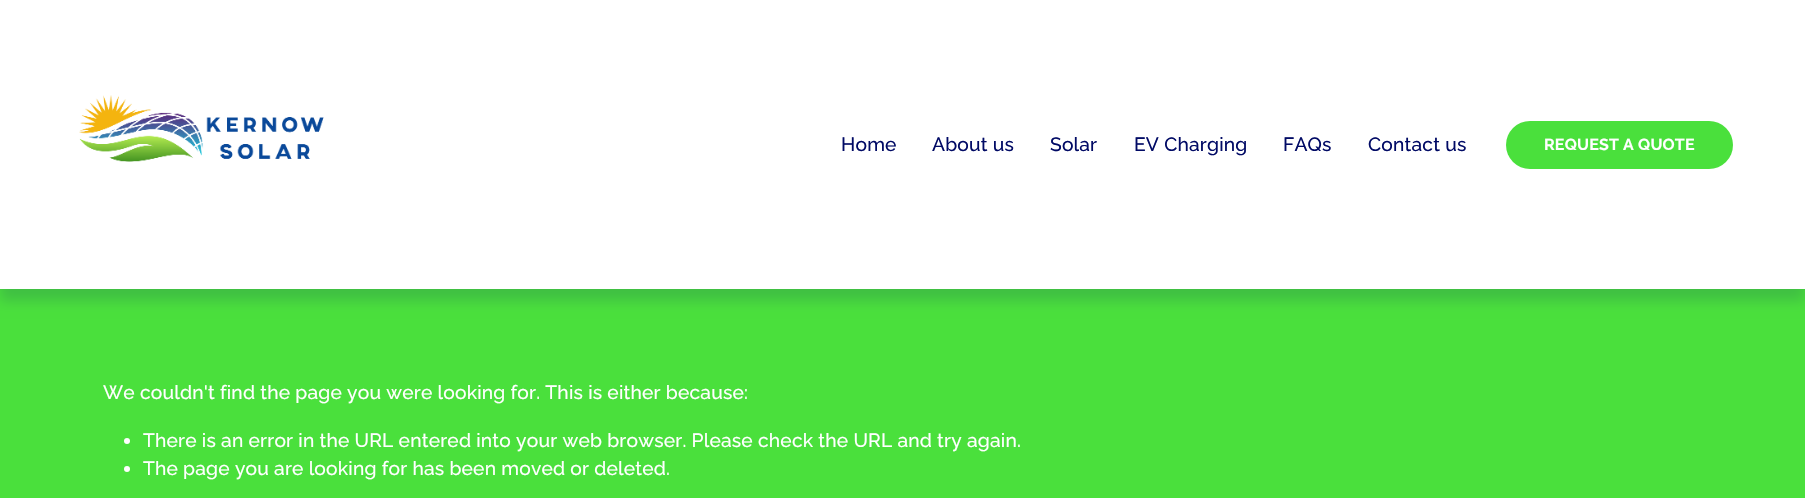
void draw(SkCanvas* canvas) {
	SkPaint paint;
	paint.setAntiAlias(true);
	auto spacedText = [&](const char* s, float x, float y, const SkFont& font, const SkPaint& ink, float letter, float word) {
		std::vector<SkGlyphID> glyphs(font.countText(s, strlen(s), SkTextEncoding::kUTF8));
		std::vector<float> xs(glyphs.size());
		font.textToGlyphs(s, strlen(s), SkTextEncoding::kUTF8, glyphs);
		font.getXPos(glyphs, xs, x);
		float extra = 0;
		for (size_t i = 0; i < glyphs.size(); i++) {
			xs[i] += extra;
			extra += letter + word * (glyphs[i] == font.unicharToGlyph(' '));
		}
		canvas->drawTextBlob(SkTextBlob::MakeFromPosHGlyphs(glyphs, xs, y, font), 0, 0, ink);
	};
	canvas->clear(0xff4ae03c);
	paint.setColor(0xff3fc042);
	paint.setMaskFilter(SkMaskFilter::MakeBlur(kNormal_SkBlurStyle, 6));
	canvas->drawRect(SkRect::MakeXYWH(0, 12, 1805, 289), paint);
	paint.setMaskFilter(nullptr);
	paint.setColor(0xffffffff);
	canvas->drawRect(SkRect::MakeXYWH(0, 0, 1805, 289), paint);
	canvas->drawImageRect(SkImages::DeferredFromEncodedData(SkData::MakeFromFileName("img1.png")), SkRect::MakeXYWH(79, 95, 245, 67), SkSamplingOptions());
	SkFont f1(fontMgr->matchFamilyStyle("Raleway", SkFontStyle(500, SkFontStyle::kNormal_Width, SkFontStyle::kUpright_Slant)), 19.2);
	f1.setSubpixel(true);
	paint.setColor(0xff010a65);
	spacedText("Home", 841, 151, f1, paint, 0.2, 0);
	spacedText("About us", 932, 151, f1, paint, 0.2, 0);
	spacedText("Solar", 1050, 151, f1, paint, 0.2, 0);
	spacedText("EV Charging", 1134, 151, f1, paint, 0.2, 0);
	spacedText("FAQs", 1283, 151, f1, paint, 0.2, 0);
	spacedText("Contact us", 1368, 151, f1, paint, 0.2, 0);
	paint.setColor(0xff4ae03c);
	canvas->drawRoundRect(SkRect::MakeXYWH(1506, 121, 227, 48), 24, 24, paint);
	SkFont f2(fontMgr->matchFamilyStyle("Raleway", SkFontStyle::Bold()), 16);
	f2.setSubpixel(true);
	paint.setColor(0xffffffff);
	spacedText("REQUEST A QUOTE", 1544, 150, f2, paint, 0.2, 0);
	spacedText("We couldn't find the page you were looking for. This is either because:", 103, 399, f1, paint, 0.2, 0);
	canvas->drawCircle(127, 441, 3, paint);
	spacedText("There is an error in the URL entered into your web browser. Please check the URL and try again.", 143, 447, f1, paint, 0.2, 0);
	canvas->drawCircle(127, 469, 3, paint);
	spacedText("The page you are looking for has been moved or deleted.", 143, 475, f1, paint, 0.2, 0);
}
